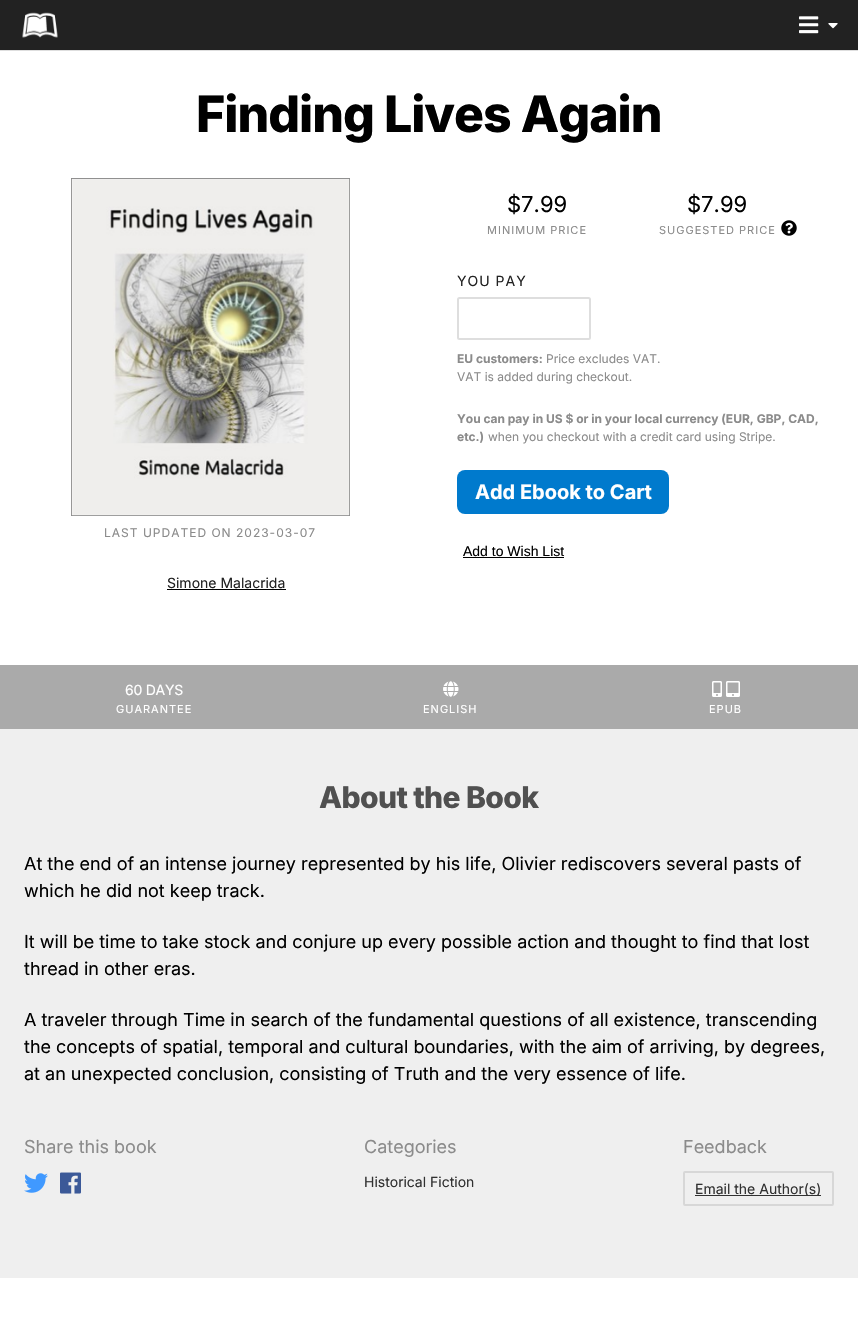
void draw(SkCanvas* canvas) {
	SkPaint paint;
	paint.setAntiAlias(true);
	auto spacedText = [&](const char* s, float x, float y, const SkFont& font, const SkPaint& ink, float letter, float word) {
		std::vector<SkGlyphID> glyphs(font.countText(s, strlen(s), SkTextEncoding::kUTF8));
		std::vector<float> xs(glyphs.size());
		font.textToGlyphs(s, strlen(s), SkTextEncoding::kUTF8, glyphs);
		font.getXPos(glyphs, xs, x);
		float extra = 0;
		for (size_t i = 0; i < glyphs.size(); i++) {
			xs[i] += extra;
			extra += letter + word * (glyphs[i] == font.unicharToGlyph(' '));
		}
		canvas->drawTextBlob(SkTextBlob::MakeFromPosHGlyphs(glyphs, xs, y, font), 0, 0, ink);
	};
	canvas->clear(0xff222222);
	canvas->drawImageRect(SkImages::DeferredFromEncodedData(SkData::MakeFromFileName("img1.png")), SkRect::MakeXYWH(22, 12, 36, 26), SkSamplingOptions());
	canvas->drawImageRect(SkImages::DeferredFromEncodedData(SkData::MakeFromFileName("img2.png")), SkRect::MakeXYWH(799, 16, 20, 18), SkSamplingOptions());
	canvas->drawImageRect(SkImages::DeferredFromEncodedData(SkData::MakeFromFileName("img3.png")), SkRect::MakeXYWH(828, 23, 10, 6), SkSamplingOptions());
	paint.setColor(0xffffffff);
	canvas->drawRect(SkRect::MakeXYWH(0, 51, 858, 614), paint);
	paint.setColor(0xffdedede);
	canvas->drawRect(SkRect::MakeXYWH(0, 50, 858, 1), paint);
	SkFont f1(fontMgr->matchFamilyStyle("Inter", SkFontStyle(800, SkFontStyle::kNormal_Width, SkFontStyle::kUpright_Slant)), 50);
	f1.setSubpixel(true);
	paint.setColor(0xff000000);
	spacedText("Finding Lives Again", 196, 132, f1, paint, -1, 0);
	paint.setStroke(true);
	paint.setStrokeWidth(1);
	paint.setColor(0xff8b8b8b);
	canvas->drawRect(SkRect::MakeXYWH(71.5, 178.5, 278, 337), paint);
	canvas->drawImageRect(SkImages::DeferredFromEncodedData(SkData::MakeFromFileName("img4.png")), SkRect::MakeXYWH(71, 178, 279, 338), SkSamplingOptions());
	SkFont f2(fontMgr->matchFamilyStyle("Inter", SkFontStyle::Normal()), 12);
	f2.setSubpixel(true);
	paint.setStroke(false);
	spacedText("LAST UPDATED ON 2023-03-07", 104, 537, f2, paint, 1, 0);
	SkFont f3(fontMgr->matchFamilyStyle("Inter", SkFontStyle::Normal()), 14);
	f3.setSubpixel(true);
	paint.setColor(0xff222222);
	canvas->drawString("Simone Malacrida", 167, 588, f3, paint);
	paint.setColor(0xff000000);
	canvas->drawRect(SkRect::MakeXYWH(167, 589, 119, 1), paint);
	SkFont f4(fontMgr->matchFamilyStyle("Inter", SkFontStyle::Normal()), 22);
	f4.setSubpixel(true);
	canvas->drawString("$7.99", 507, 212, f4, paint);
	SkFont f5(fontMgr->matchFamilyStyle("Inter", SkFontStyle::Normal()), 11);
	f5.setSubpixel(true);
	paint.setColor(0xff8b8b8b);
	spacedText("MINIMUM PRICE", 487, 234, f5, paint, 1, 0);
	paint.setColor(0xff000000);
	canvas->drawString("$7.99", 687, 212, f4, paint);
	paint.setColor(0xff8b8b8b);
	spacedText("SUGGESTED PRICE", 659, 234, f5, paint, 1, 0);
	canvas->drawImageRect(SkImages::DeferredFromEncodedData(SkData::MakeFromFileName("img5.png")), SkRect::MakeXYWH(781, 220, 16, 16), SkSamplingOptions());
	paint.setColor(0xff222222);
	spacedText("YOU PAY", 457, 286, f3, paint, 1, 0);
	paint.setStroke(true);
	paint.setStrokeWidth(2);
	paint.setColor(0xffdedede);
	canvas->drawRoundRect(SkRect::MakeXYWH(458, 298, 132, 41), 1.5, 1.5, paint);
	SkFont f6(fontMgr->matchFamilyStyle("Inter", SkFontStyle::Bold()), 12);
	f6.setSubpixel(true);
	paint.setStroke(false);
	paint.setColor(0xff8b8b8b);
	canvas->drawString("EU customers:", 457, 363, f6, paint);
	canvas->drawString("Price excludes VAT.", 546, 363, f2, paint);
	canvas->drawString("VAT is added during checkout.", 457, 381, f2, paint);
	canvas->drawString("You can pay in US $ or in your local currency (EUR, GBP, CAD,", 457, 423, f6, paint);
	canvas->drawString("etc.)", 457, 441, f6, paint);
	canvas->drawString("when you checkout with a credit card using Stripe.", 488, 441, f2, paint);
	paint.setColor(0xff007acd);
	canvas->drawRoundRect(SkRect::MakeXYWH(457, 470, 212, 44), 8, 8, paint);
	SkFont f7(fontMgr->matchFamilyStyle("Inter", SkFontStyle::Bold()), 20);
	f7.setSubpixel(true);
	paint.setColor(0xffffffff);
	canvas->drawString("Add Ebook to Cart", 475, 499, f7, paint);
	SkFont f8(fontMgr->matchFamilyStyle("Liberation Sans", SkFontStyle::Normal()), 14);
	f8.setSubpixel(true);
	paint.setColor(0xff000000);
	canvas->drawString("Add to Wish List", 463, 556, f8, paint);
	canvas->drawRect(SkRect::MakeXYWH(463, 557, 101, 1), paint);
	paint.setColor(0xffaaaaaa);
	canvas->drawRect(SkRect::MakeXYWH(0, 665, 858, 64), paint);
	paint.setColor(0xffffffff);
	spacedText("60 DAYS", 125, 695, f3, paint, -0.25, 0);
	spacedText("GUARANTEE", 116, 713, f5, paint, 1, 0);
	canvas->drawImageRect(SkImages::DeferredFromEncodedData(SkData::MakeFromFileName("img6.png")), SkRect::MakeXYWH(443, 681, 16, 16), SkSamplingOptions());
	spacedText("ENGLISH", 423, 713, f5, paint, 1, 0);
	canvas->drawImageRect(SkImages::DeferredFromEncodedData(SkData::MakeFromFileName("img7.png")), SkRect::MakeXYWH(712, 681, 10, 16), SkSamplingOptions());
	canvas->drawImageRect(SkImages::DeferredFromEncodedData(SkData::MakeFromFileName("img8.png")), SkRect::MakeXYWH(726, 681, 14, 16), SkSamplingOptions());
	spacedText("EPUB", 709, 713, f5, paint, 1, 0);
	paint.setColor(0xffefefef);
	canvas->drawRect(SkRect::MakeXYWH(0, 729, 858, 549), paint);
	SkFont f9(fontMgr->matchFamilyStyle("Inter", SkFontStyle(800, SkFontStyle::kNormal_Width, SkFontStyle::kUpright_Slant)), 30);
	f9.setSubpixel(true);
	paint.setColor(0xff505050);
	spacedText("About the Book", 319, 808, f9, paint, -0.6, 0);
	SkFont f10(fontMgr->matchFamilyStyle("Inter", SkFontStyle::Normal()), 18);
	f10.setSubpixel(true);
	paint.setColor(0xff000000);
	canvas->drawString("At the end of an intense journey represented by his life, Olivier rediscovers several pasts of", 24, 870, f10, paint);
	canvas->drawString("which he did not keep track.", 24, 897, f10, paint);
	canvas->drawString("It will be time to take stock and conjure up every possible action and thought to find that lost", 24, 948, f10, paint);
	canvas->drawString("thread in other eras.", 24, 975, f10, paint);
	canvas->drawString("A traveler through Time in search of the fundamental questions of all existence, transcending", 24, 1026, f10, paint);
	canvas->drawString("the concepts of spatial, temporal and cultural boundaries, with the aim of arriving, by degrees,", 24, 1053, f10, paint);
	canvas->drawString("at an unexpected conclusion, consisting of Truth and the very essence of life.", 24, 1080, f10, paint);
	paint.setColor(0xff8b8b8b);
	canvas->drawString("Share this book", 24, 1153, f10, paint);
	canvas->drawImageRect(SkImages::DeferredFromEncodedData(SkData::MakeFromFileName("img9.png")), SkRect::MakeXYWH(24, 1173, 24, 20), SkSamplingOptions());
	canvas->drawImageRect(SkImages::DeferredFromEncodedData(SkData::MakeFromFileName("img10.png")), SkRect::MakeXYWH(60, 1172, 21, 22), SkSamplingOptions());
	canvas->drawString("Categories", 364, 1153, f10, paint);
	paint.setColor(0xff313131);
	canvas->drawString("Historical Fiction", 364, 1187, f3, paint);
	paint.setColor(0xff8b8b8b);
	canvas->drawString("Feedback", 683, 1153, f10, paint);
	paint.setStroke(true);
	paint.setColor(0xffd7d7d7);
	canvas->drawRoundRect(SkRect::MakeXYWH(684, 1172, 149, 33), 1, 1, paint);
	paint.setStroke(false);
	paint.setColor(0xff313131);
	canvas->drawRect(SkRect::MakeXYWH(695, 1195, 126, 1), paint);
	canvas->drawString("Email the Author(s)", 695, 1194, f3, paint);
	paint.setColor(0xffffffff);
	canvas->drawRect(SkRect::MakeXYWH(0, 1278, 858, 65), paint);
}
